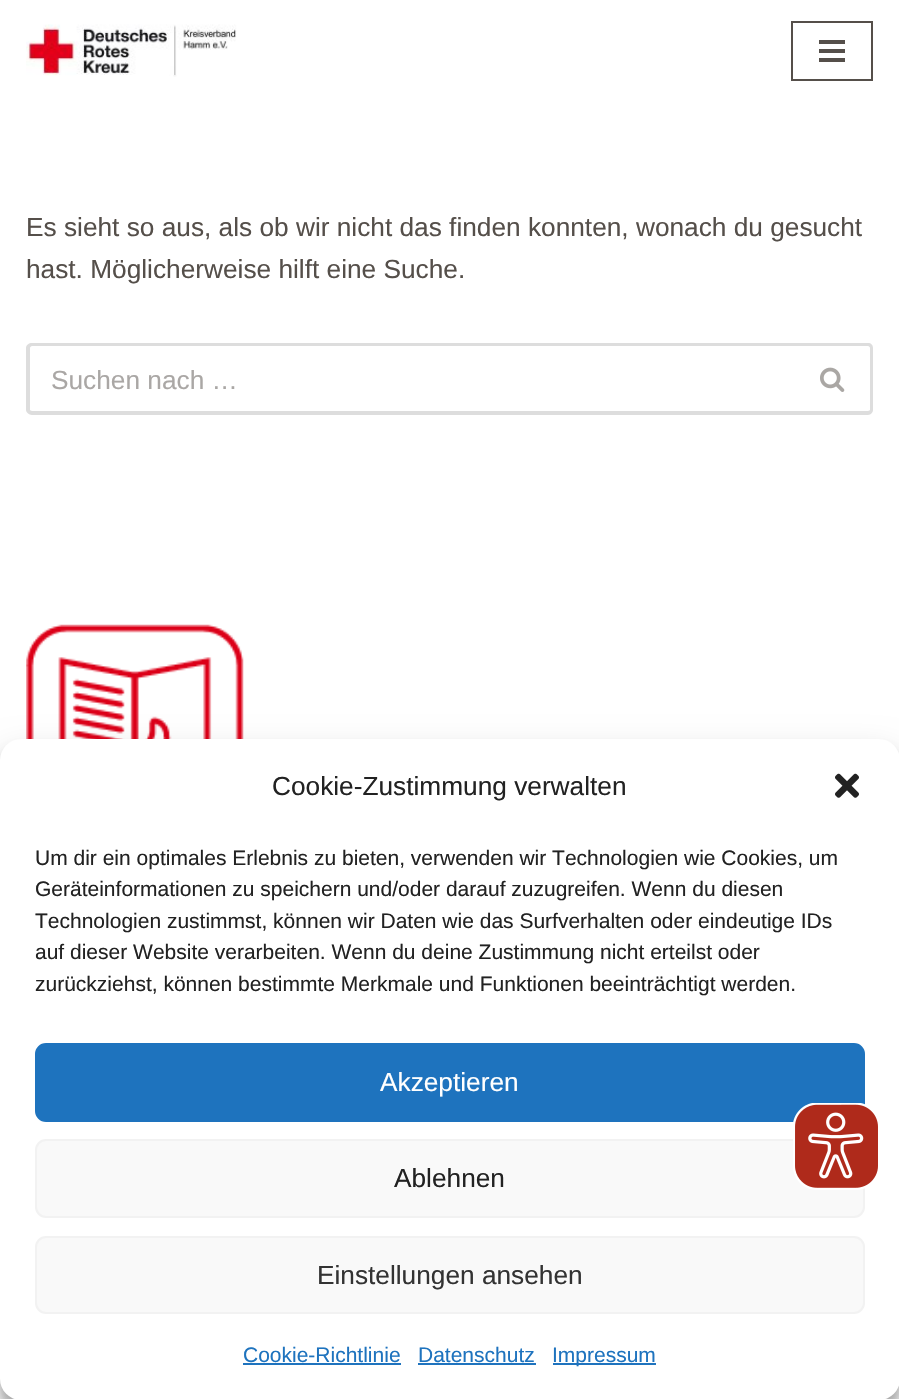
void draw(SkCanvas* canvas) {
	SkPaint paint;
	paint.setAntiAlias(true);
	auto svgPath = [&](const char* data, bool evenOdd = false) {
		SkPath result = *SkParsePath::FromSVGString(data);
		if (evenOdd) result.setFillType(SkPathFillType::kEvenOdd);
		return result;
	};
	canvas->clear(0xffffffff);
	canvas->drawImageRect(SkImages::DeferredFromEncodedData(SkData::MakeFromFileName("img1.png")), SkRect::MakeXYWH(26, 24, 211, 53), SkSamplingOptions());
	paint.setStroke(true);
	paint.setStrokeWidth(2);
	paint.setColor(0xff554f4a);
	canvas->drawRect(SkRect::MakeXYWH(792, 22, 80, 58), paint);
	paint.setStroke(false);
	canvas->drawRect(SkRect::MakeXYWH(819, 40, 26, 4), paint);
	canvas->drawRect(SkRect::MakeXYWH(819, 49, 26, 4), paint);
	canvas->drawRect(SkRect::MakeXYWH(819, 58, 26, 4), paint);
	SkFont f1(fontMgr->matchFamilyStyle("Liberation Sans", SkFontStyle::Normal()), 26.25);
	f1.setSubpixel(true);
	canvas->drawString("Es sieht so aus, als ob wir nicht das finden konnten, wonach du gesucht", 26, 236, f1, paint);
	canvas->drawString("hast. Möglicherweise hilft eine Suche.", 26, 278, f1, paint);
	paint.setColor(0xffdddddd);
	canvas->drawPath(svgPath("M32 343H794V415H32C29 415 26 412 26 410V348C26 345 29 343 32 343ZM32 346H794V411H32C31 411 30 410 30 410V348C30 347 31 346 32 346Z", true), paint);
	paint.setColor(0xffaaa7a5);
	canvas->drawString("Suchen nach …", 51, 389, f1, paint);
	paint.setColor(0xffdddddd);
	canvas->drawPath(svgPath("M794 343H868C871 343 873 345 873 348V410C873 412 871 415 868 415H794ZM794 346H868C869 346 870 347 870 348V410C870 410 869 411 868 411H794Z", true), paint);
	canvas->drawImageRect(SkImages::DeferredFromEncodedData(SkData::MakeFromFileName("img2.png")), SkRect::MakeXYWH(820, 367, 25, 25), SkSamplingOptions());
	canvas->drawImageRect(SkImages::DeferredFromEncodedData(SkData::MakeFromFileName("img3.png")), SkRect::MakeXYWH(26, 624, 218, 115), SkSamplingOptions());
	paint.setColor(0x3b000000);
	paint.setMaskFilter(SkMaskFilter::MakeBlur(kNormal_SkBlurStyle, 5));
	canvas->drawRoundRect(SkRect::MakeXYWH(0, 749, 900, 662), 21, 21, paint);
	paint.setMaskFilter(nullptr);
	paint.setColor(0x30000000);
	paint.setMaskFilter(SkMaskFilter::MakeBlur(kNormal_SkBlurStyle, 17.5));
	canvas->drawRoundRect(SkRect::MakeXYWH(0, 756, 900, 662), 21, 21, paint);
	paint.setMaskFilter(nullptr);
	paint.setColor(0xffffffff);
	canvas->drawRoundRect(SkRect::MakeXYWH(0, 739, 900, 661), 21, 21, paint);
	paint.setColor(0xff222222);
	canvas->drawString("Cookie-Zustimmung verwalten", 272, 795, f1, paint);
	canvas->drawImageRect(SkImages::DeferredFromEncodedData(SkData::MakeFromFileName("img4.png")), SkRect::MakeXYWH(835, 773, 24, 25), SkSamplingOptions());
	SkFont f2(fontMgr->matchFamilyStyle("Liberation Sans", SkFontStyle::Normal()), 21);
	f2.setSubpixel(true);
	canvas->drawString("Um dir ein optimales Erlebnis zu bieten, verwenden wir Technologien wie Cookies, um", 35, 865, f2, paint);
	canvas->drawString("Geräteinformationen zu speichern und/oder darauf zuzugreifen. Wenn du diesen", 35, 896, f2, paint);
	canvas->drawString("Technologien zustimmst, können wir Daten wie das Surfverhalten oder eindeutige IDs", 35, 928, f2, paint);
	canvas->drawString("auf dieser Website verarbeiten. Wenn du deine Zustimmung nicht erteilst oder", 35, 959, f2, paint);
	canvas->drawString("zurückziehst, können bestimmte Merkmale und Funktionen beeinträchtigt werden.", 35, 991, f2, paint);
	paint.setColor(0xff1e73be);
	canvas->drawRoundRect(SkRect::MakeXYWH(36, 1044, 828, 77), 10, 10, paint);
	paint.setStroke(true);
	canvas->drawRoundRect(SkRect::MakeXYWH(36, 1044, 828, 77), 10, 10, paint);
	paint.setStroke(false);
	paint.setColor(0xffffffff);
	canvas->drawString("Akzeptieren", 380, 1091, f1, paint);
	paint.setColor(0xfff9f9f9);
	canvas->drawRoundRect(SkRect::MakeXYWH(36, 1140, 828, 77), 10, 10, paint);
	paint.setStroke(true);
	paint.setColor(0xfff2f2f2);
	canvas->drawRoundRect(SkRect::MakeXYWH(36, 1140, 828, 77), 10, 10, paint);
	paint.setStroke(false);
	paint.setColor(0xff222222);
	canvas->drawString("Ablehnen", 394, 1187, f1, paint);
	paint.setColor(0xfff9f9f9);
	canvas->drawRoundRect(SkRect::MakeXYWH(36, 1237, 828, 76), 10, 10, paint);
	paint.setStroke(true);
	paint.setColor(0xfff2f2f2);
	canvas->drawRoundRect(SkRect::MakeXYWH(36, 1237, 828, 76), 10, 10, paint);
	paint.setStroke(false);
	paint.setColor(0xff333333);
	canvas->drawString("Einstellungen ansehen", 317, 1284, f1, paint);
	paint.setColor(0xff1e73be);
	canvas->drawString("Cookie-Richtlinie", 243, 1362, f2, paint);
	canvas->drawRect(SkRect::MakeXYWH(243, 1363, 158, 2), paint);
	canvas->drawString("Datenschutz", 418, 1362, f2, paint);
	canvas->drawRect(SkRect::MakeXYWH(418, 1363, 118, 2), paint);
	canvas->drawRect(SkRect::MakeXYWH(553, 1363, 103, 2), paint);
	canvas->drawString("Impressum", 552, 1362, f2, paint);
	canvas->drawImageRect(SkImages::DeferredFromEncodedData(SkData::MakeFromFileName("img5.png")), SkRect::MakeXYWH(793, 1103, 85, 87), SkSamplingOptions());
}
